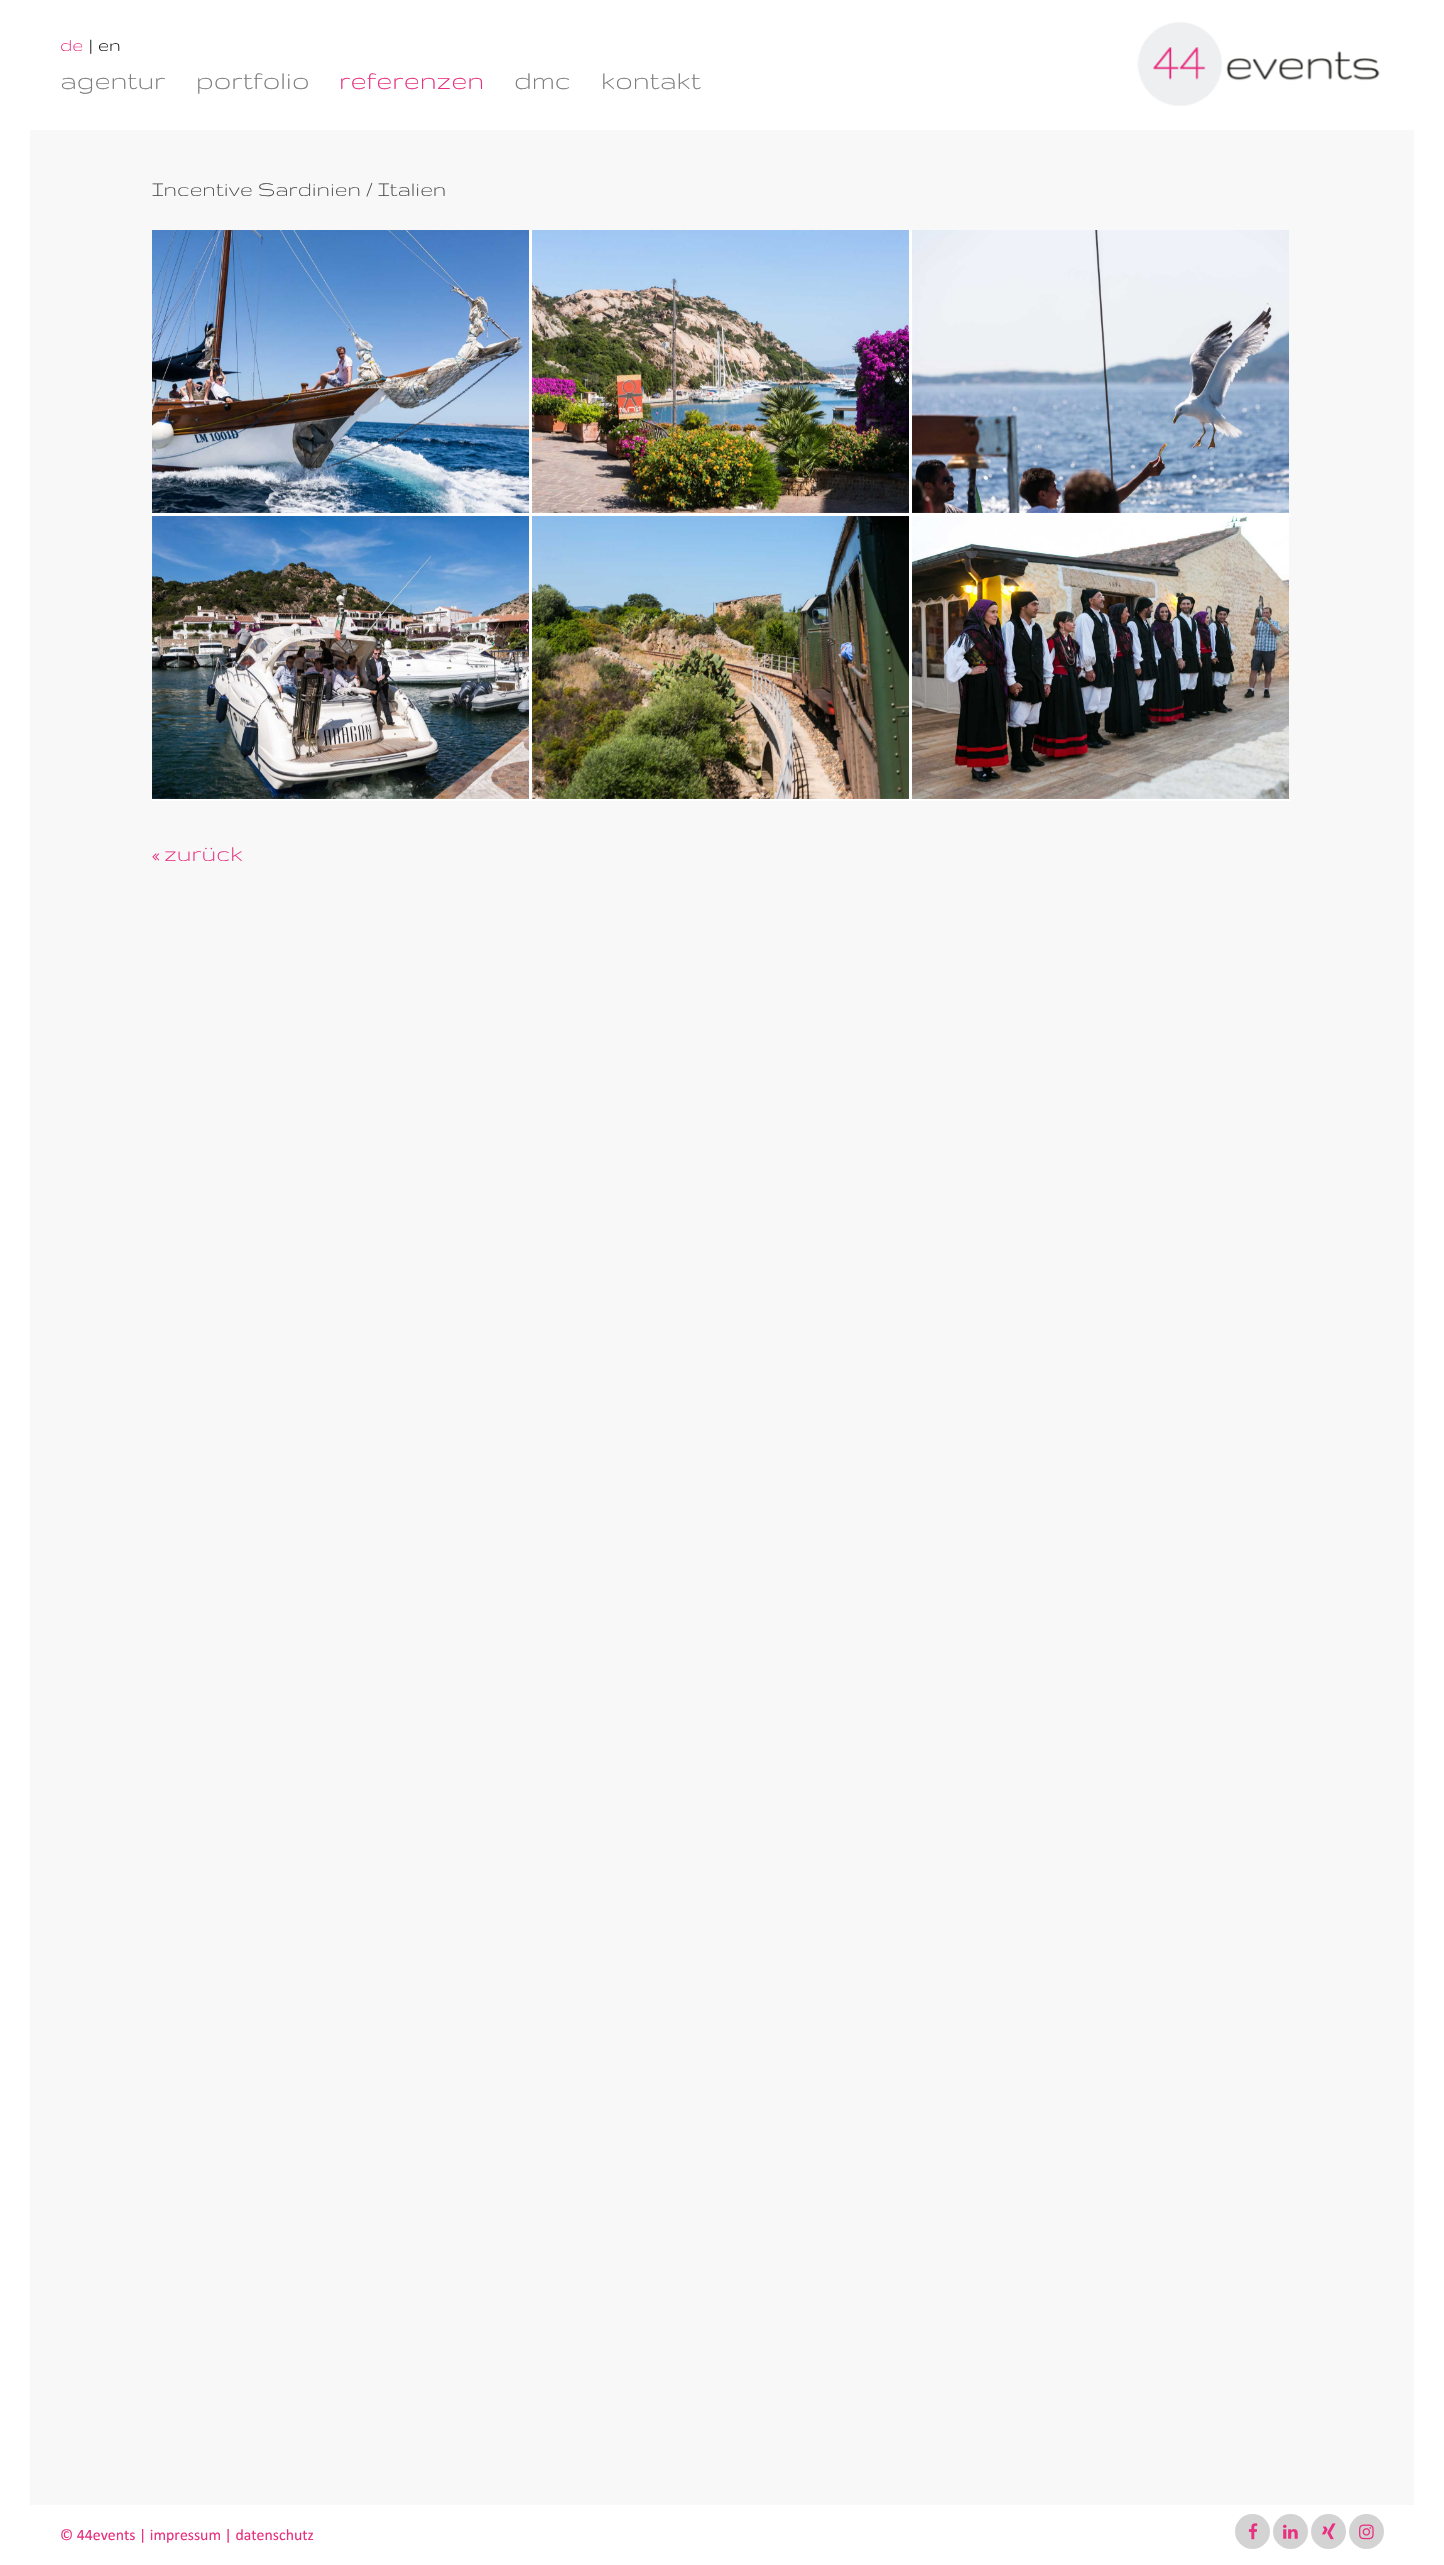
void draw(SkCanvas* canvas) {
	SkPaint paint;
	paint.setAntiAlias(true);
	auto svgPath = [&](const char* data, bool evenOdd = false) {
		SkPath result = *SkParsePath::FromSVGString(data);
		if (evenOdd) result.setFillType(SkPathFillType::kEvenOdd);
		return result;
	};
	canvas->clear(0xfff8f8f8);
	paint.setColor(0xffffffff);
	canvas->drawRect(SkRect::MakeXYWH(0, 130, 30, 2375), paint);
	canvas->drawRect(SkRect::MakeXYWH(0, 0, 1444, 130), paint);
	SkFont f1(fontMgr->matchFamilyStyle("Gruppo", SkFontStyle::Normal()), 20);
	f1.setSubpixel(true);
	paint.setColor(0xffe73180);
	canvas->drawString("de", 60, 51, f1, paint);
	SkFont f2(fontMgr->matchFamilyStyle("Calibri", SkFontStyle::Normal()), 16);
	f2.setSubpixel(true);
	paint.setColor(0xff4d4d4d);
	canvas->drawString("|", 87, 51, f2, paint);
	paint.setColor(0xff000000);
	canvas->drawString("en", 98, 51, f1, paint);
	canvas->drawImageRect(SkImages::DeferredFromEncodedData(SkData::MakeFromFileName("img1.png")), SkRect::MakeXYWH(1137, 21, 243, 85), SkSamplingOptions());
	SkFont f3(fontMgr->matchFamilyStyle("Gruppo", SkFontStyle::Normal()), 29);
	f3.setSubpixel(true);
	paint.setColor(0xff7c7c7c);
	canvas->drawString("agentur", 60, 89, f3, paint);
	canvas->drawString("portfolio", 196, 89, f3, paint);
	paint.setColor(0xffe73180);
	canvas->drawString("referenzen", 339, 89, f3, paint);
	paint.setColor(0xff7c7c7c);
	canvas->drawString("dmc", 514, 89, f3, paint);
	canvas->drawString("kontakt", 601, 89, f3, paint);
	SkFont f4(fontMgr->matchFamilyStyle("Gruppo", SkFontStyle::Normal()), 23);
	f4.setSubpixel(true);
	paint.setColor(0xff4d4d4d);
	canvas->drawString("Incentive Sardinien / Italien", 152, 196, f4, paint);
	paint.setColor(0xffffffff);
	canvas->drawRect(SkRect::MakeXYWH(529, 230, 3, 571), paint);
	canvas->drawRect(SkRect::MakeXYWH(152, 513, 380, 3), paint);
	canvas->drawImageRect(SkImages::DeferredFromEncodedData(SkData::MakeFromFileName("img2.png")), SkRect::MakeXYWH(152, 230, 377, 283), SkSamplingOptions());
	canvas->drawRect(SkRect::MakeXYWH(909, 230, 3, 571), paint);
	canvas->drawRect(SkRect::MakeXYWH(532, 513, 380, 3), paint);
	canvas->drawImageRect(SkImages::DeferredFromEncodedData(SkData::MakeFromFileName("img3.png")), SkRect::MakeXYWH(532, 230, 377, 283), SkSamplingOptions());
	canvas->drawPath(svgPath("M1292 516H912V513H1289Z"), paint);
	canvas->drawImageRect(SkImages::DeferredFromEncodedData(SkData::MakeFromFileName("img4.png")), SkRect::MakeXYWH(912, 230, 377, 283), SkSamplingOptions());
	canvas->drawRect(SkRect::MakeXYWH(152, 799, 760, 2), paint);
	canvas->drawImageRect(SkImages::DeferredFromEncodedData(SkData::MakeFromFileName("img5.png")), SkRect::MakeXYWH(152, 516, 377, 283), SkSamplingOptions());
	canvas->drawImageRect(SkImages::DeferredFromEncodedData(SkData::MakeFromFileName("img6.png")), SkRect::MakeXYWH(532, 516, 377, 283), SkSamplingOptions());
	canvas->save();
	canvas->clipRect(SkRect::MakeXYWH(152, 230, 1140, 571));
	canvas->drawPath(svgPath("M1292 802H912V799H1289Z"), paint);
	canvas->restore();
	canvas->drawImageRect(SkImages::DeferredFromEncodedData(SkData::MakeFromFileName("img7.png")), SkRect::MakeXYWH(912, 516, 377, 283), SkSamplingOptions());
	canvas->drawImageRect(SkImages::DeferredFromEncodedData(SkData::MakeFromFileName("img8.png")), SkRect::MakeXYWH(152, 853, 8, 8), SkSamplingOptions());
	SkFont f5(fontMgr->matchFamilyStyle("Gruppo", SkFontStyle::Normal()), 25.5);
	f5.setSubpixel(true);
	paint.setColor(0xffe73180);
	canvas->drawString("zurück", 164, 861, f5, paint);
	paint.setColor(0xffffffff);
	canvas->drawRect(SkRect::MakeXYWH(0, 2505, 1444, 60), paint);
	SkFont f6(fontMgr->matchFamilyStyle("Calibri", SkFontStyle::Normal()), 15.8);
	f6.setSubpixel(true);
	paint.setColor(0xffe73180);
	canvas->drawString("© 44events | impressum | datenschutz", 60, 2540, f6, paint);
	paint.setColor(0xffd3d3d3);
	canvas->drawCircle(1252.5, 2531.5, 17.5, paint);
	canvas->drawImageRect(SkImages::DeferredFromEncodedData(SkData::MakeFromFileName("img9.png")), SkRect::MakeXYWH(1248, 2523, 10, 17), SkSamplingOptions());
	canvas->drawCircle(1290.5, 2531.5, 17.5, paint);
	canvas->drawImageRect(SkImages::DeferredFromEncodedData(SkData::MakeFromFileName("img10.png")), SkRect::MakeXYWH(1283, 2524, 15, 15), SkSamplingOptions());
	canvas->drawCircle(1328.5, 2531.5, 17.5, paint);
	canvas->drawImageRect(SkImages::DeferredFromEncodedData(SkData::MakeFromFileName("img11.png")), SkRect::MakeXYWH(1322, 2523, 14, 17), SkSamplingOptions());
	canvas->drawCircle(1366.5, 2531.5, 17.5, paint);
	canvas->drawImageRect(SkImages::DeferredFromEncodedData(SkData::MakeFromFileName("img12.png")), SkRect::MakeXYWH(1359, 2524, 15, 16), SkSamplingOptions());
	paint.setColor(0xffffffff);
	canvas->drawRect(SkRect::MakeXYWH(1414, 130, 30, 2375), paint);
}
